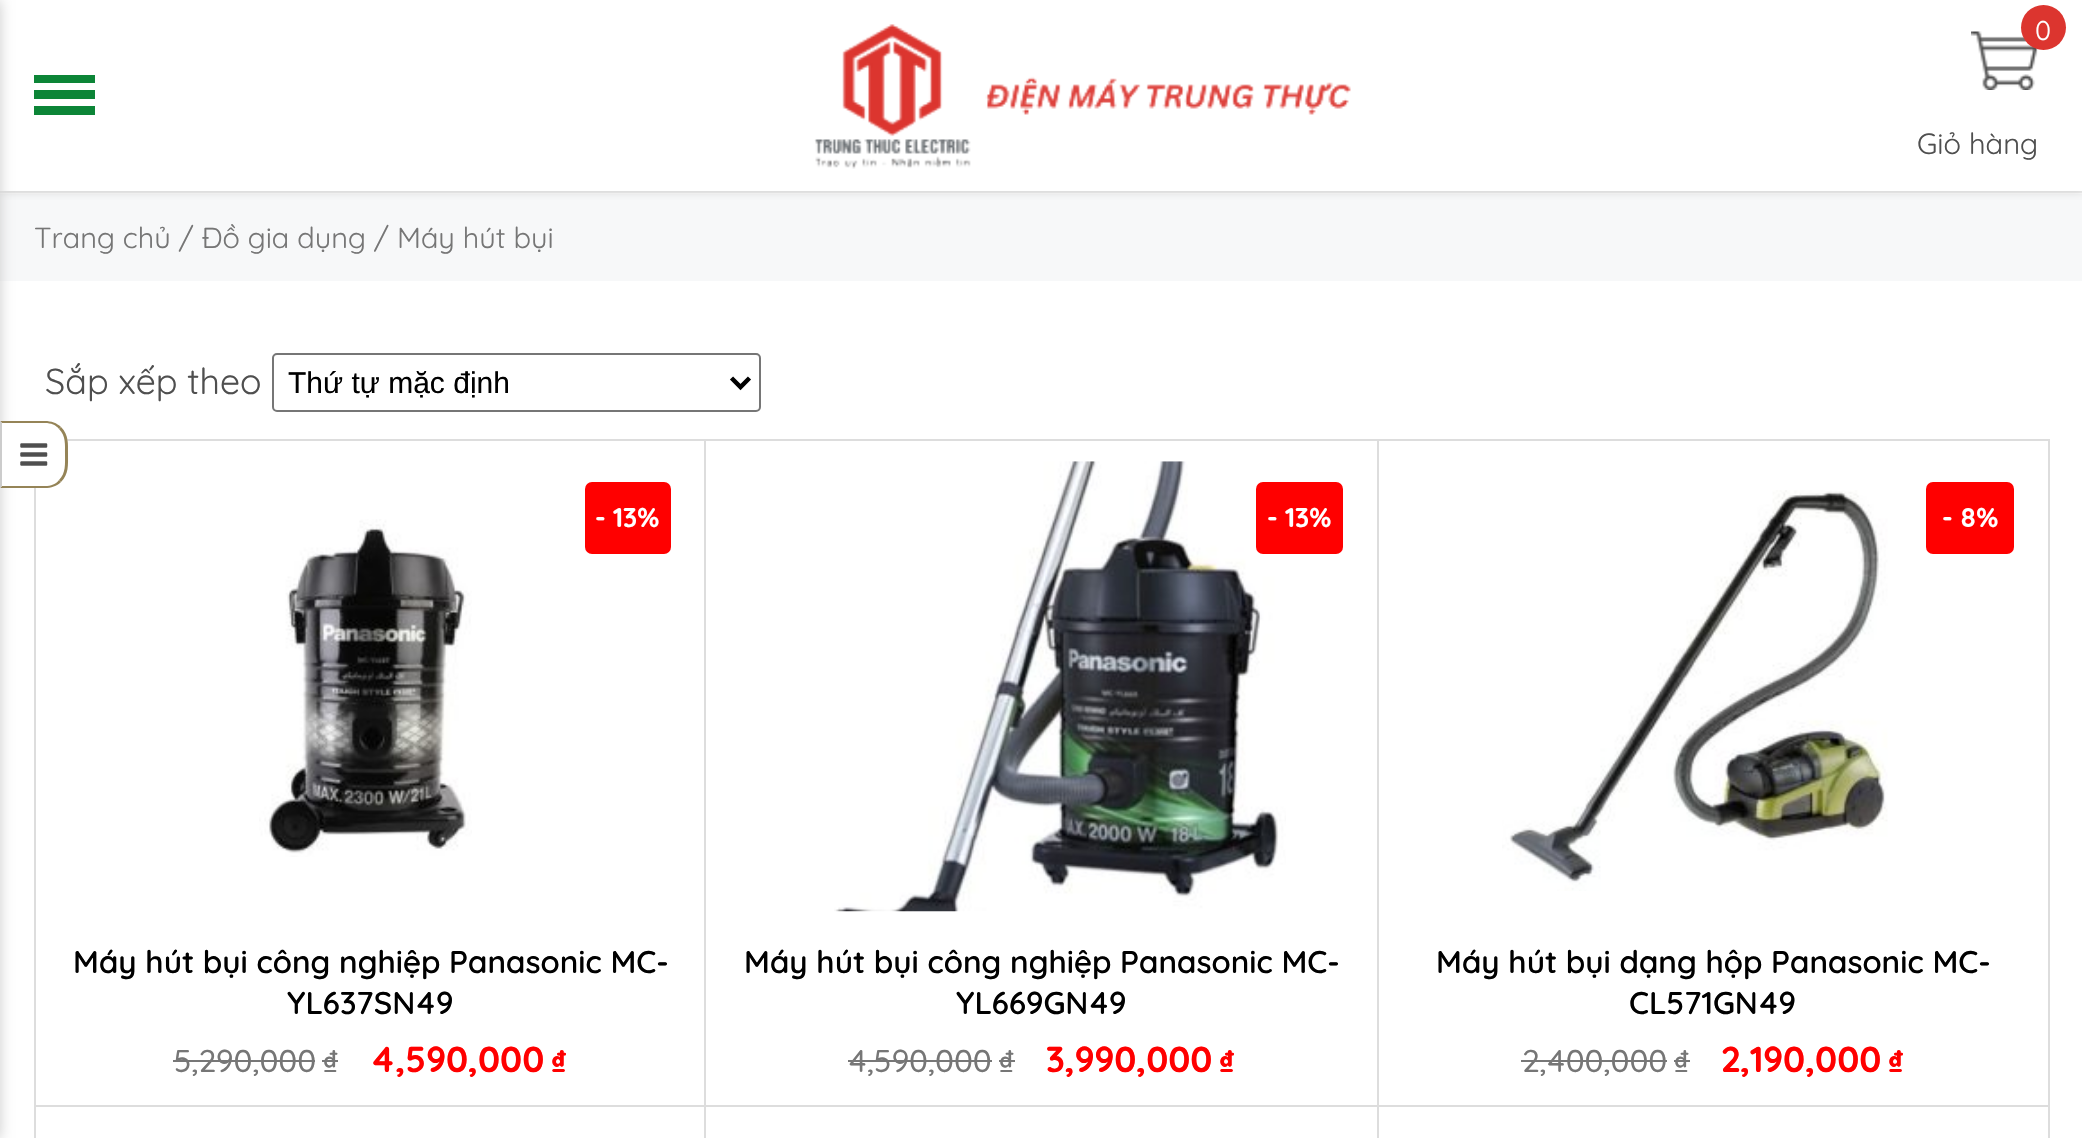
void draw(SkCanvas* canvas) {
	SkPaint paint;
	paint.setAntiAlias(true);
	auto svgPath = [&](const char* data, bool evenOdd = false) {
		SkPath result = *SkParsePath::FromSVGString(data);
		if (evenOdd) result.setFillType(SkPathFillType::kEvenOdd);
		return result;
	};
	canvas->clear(0xffffffff);
	paint.setColor(0xffeeeeee);
	canvas->drawRect(SkRect::MakeXYWH(0, 191, 2082, 2), paint);
	paint.setColor(0xfff7f8f9);
	canvas->drawRect(SkRect::MakeXYWH(0, 194, 2082, 87), paint);
	canvas->save();
	canvas->clipRect(SkRect::MakeXYWH(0, 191, 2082, 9));
	paint.setColor(0xffcccccc);
	paint.setMaskFilter(SkMaskFilter::MakeBlur(kNormal_SkBlurStyle, 4.5));
	canvas->drawRect(SkRect::MakeXYWH(0, 0, 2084, 191), paint);
	paint.setMaskFilter(nullptr);
	canvas->restore();
	paint.setColor(0xff0c8537);
	canvas->drawRect(SkRect::MakeXYWH(34, 75, 61, 40), paint);
	paint.setColor(0xffffffff);
	canvas->drawRect(SkRect::MakeXYWH(34, 83, 61, 7), paint);
	canvas->drawRect(SkRect::MakeXYWH(34, 99, 61, 7), paint);
	canvas->drawImageRect(SkImages::DeferredFromEncodedData(SkData::MakeFromFileName("img1.png")), SkRect::MakeXYWH(814, 24, 537, 145), SkSamplingOptions());
	canvas->drawImageRect(SkImages::DeferredFromEncodedData(SkData::MakeFromFileName("img2.png")), SkRect::MakeXYWH(1971, 31, 68, 59), SkSamplingOptions());
	paint.setColor(0xffdc352f);
	canvas->drawCircle(2043.5, 27.5, 22.5, paint);
	SkFont f1(fontMgr->matchFamilyStyle("Quicksand", SkFontStyle::Normal()), 27);
	f1.setSubpixel(true);
	paint.setColor(0xffffffff);
	canvas->drawString("0", 2035, 40, f1, paint);
	SkFont f2(fontMgr->matchFamilyStyle("Quicksand", SkFontStyle::Normal()), 29.25);
	f2.setSubpixel(true);
	paint.setColor(0xff4f4f4f);
	canvas->drawString("Giỏ hàng", 1917, 154, f2, paint);
	SkFont f3(fontMgr->matchFamilyStyle("Quicksand", SkFontStyle::Normal()), 29);
	f3.setSubpixel(true);
	paint.setColor(0xff767676);
	canvas->drawString("Trang chủ / Đồ gia dụng / Máy hút bụi", 34, 248, f3, paint);
	paint.setColor(0xffcccccc);
	paint.setMaskFilter(SkMaskFilter::MakeBlur(kNormal_SkBlurStyle, 7));
	canvas->drawRect(SkRect::MakeXYWH(-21, 0, 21, 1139), paint);
	paint.setMaskFilter(nullptr);
	paint.setColor(0xffdddddd);
	canvas->drawRect(SkRect::MakeXYWH(67, 439, 1983, 2), paint);
	paint.setColor(0xffffffff);
	canvas->drawPath(svgPath("M0 421H45C57.5 421 68 431.5 68 444V465C68 477.5 57.5 488 45 488H0Z"), paint);
	paint.setColor(0xff958457);
	canvas->drawPath(svgPath("M61 427C57 423 51 421 45 421H0L2 423H45C51 423 56 425 59 429Z"), paint);
	canvas->drawPath(svgPath("M61 427C69 435 68 444 68 454C68 465 69 474 61 482L59 480C66 473 65 464 65 454C65 445 66 436 59 429Z"), paint);
	canvas->drawPath(svgPath("M61 482C57 486 51 488 45 488H0L2 486H45C51 486 56 484 59 480Z"), paint);
	paint.setColor(0xffcccccc);
	canvas->drawPath(svgPath("M2 423V486L0 488V421Z"), paint);
	canvas->drawImageRect(SkImages::DeferredFromEncodedData(SkData::MakeFromFileName("img3.png")), SkRect::MakeXYWH(20, 443, 28, 23), SkSamplingOptions());
	SkFont f4(fontMgr->matchFamilyStyle("Quicksand", SkFontStyle::Normal()), 36);
	f4.setSubpixel(true);
	paint.setColor(0xff4f4f4f);
	canvas->drawString("Sắp xếp theo", 45, 394, f4, paint);
	paint.setStroke(true);
	paint.setStrokeWidth(2);
	paint.setColor(0xff767676);
	canvas->drawRoundRect(SkRect::MakeXYWH(273, 354, 487, 57), 4, 4, paint);
	paint.setStrokeWidth(4.5);
	paint.setColor(0xff000000);
	canvas->drawPath(svgPath("M731.5 378L740.5 387L749.5 378"), paint);
	SkFont f5(fontMgr->matchFamilyStyle("Liberation Sans", SkFontStyle::Normal()), 30);
	f5.setSubpixel(true);
	paint.setStroke(false);
	canvas->drawString("Thứ tự mặc định", 288, 393, f5, paint);
	paint.setColor(0xffdddddd);
	canvas->drawRect(SkRect::MakeXYWH(34, 488, 2, 650), paint);
	canvas->drawRect(SkRect::MakeXYWH(704, 441, 2, 697), paint);
	canvas->drawRect(SkRect::MakeXYWH(36, 1105, 671, 2), paint);
	canvas->drawImageRect(SkImages::DeferredFromEncodedData(SkData::MakeFromFileName("img4.png")), SkRect::MakeXYWH(259, 519, 213, 338), SkSamplingOptions());
	paint.setColor(0xffff0000);
	canvas->drawRoundRect(SkRect::MakeXYWH(585, 482, 86, 72), 7, 7, paint);
	SkFont f6(fontMgr->matchFamilyStyle("Quicksand", SkFontStyle::Bold()), 27);
	f6.setSubpixel(true);
	paint.setColor(0xffffffff);
	canvas->drawString("- 13%", 595, 527, f6, paint);
	SkFont f7(fontMgr->matchFamilyStyle("Quicksand", SkFontStyle(600, SkFontStyle::kNormal_Width, SkFontStyle::kUpright_Slant)), 31.5);
	f7.setSubpixel(true);
	paint.setColor(0xff000000);
	canvas->drawString("Máy hút bụi công nghiệp Panasonic MC-", 73, 973, f7, paint);
	canvas->drawString("YL637SN49", 287, 1014, f7, paint);
	SkFont f8(fontMgr->matchFamilyStyle("Quicksand", SkFontStyle(500, SkFontStyle::kNormal_Width, SkFontStyle::kUpright_Slant)), 31.5);
	f8.setSubpixel(true);
	paint.setColor(0xff767676);
	canvas->drawString("5,290,000", 174, 1072, f8, paint);
	paint.setColor(0xff777777);
	canvas->drawRect(SkRect::MakeXYWH(173, 1060, 142, 2), paint);
	paint.setColor(0xff767676);
	canvas->drawString("₫", 323, 1072, f8, paint);
	paint.setColor(0xff777777);
	canvas->drawRect(SkRect::MakeXYWH(322, 1060, 16, 2), paint);
	SkFont f9(fontMgr->matchFamilyStyle("Quicksand", SkFontStyle::Bold()), 36);
	f9.setSubpixel(true);
	paint.setColor(0xffff0000);
	canvas->drawString("4,590,000", 370, 1072, f9, paint);
	SkFont f10(fontMgr->matchFamilyStyle("Quicksand", SkFontStyle::Bold()), 31.5);
	f10.setSubpixel(true);
	canvas->drawString("₫", 551, 1072, f10, paint);
	paint.setColor(0xffdddddd);
	canvas->drawRect(SkRect::MakeXYWH(1377, 441, 2, 697), paint);
	canvas->drawRect(SkRect::MakeXYWH(707, 1105, 672, 2), paint);
	canvas->drawImageRect(SkImages::DeferredFromEncodedData(SkData::MakeFromFileName("img5.png")), SkRect::MakeXYWH(834, 461, 452, 451), SkSamplingOptions());
	paint.setColor(0xffff0000);
	canvas->drawRoundRect(SkRect::MakeXYWH(1256, 482, 87, 72), 7, 7, paint);
	paint.setColor(0xffffffff);
	canvas->drawString("- 13%", 1267, 527, f6, paint);
	paint.setColor(0xff000000);
	canvas->drawString("Máy hút bụi công nghiệp Panasonic MC-", 744, 973, f7, paint);
	canvas->drawString("YL669GN49", 956, 1014, f7, paint);
	paint.setColor(0xff767676);
	canvas->drawString("4,590,000", 848, 1072, f8, paint);
	paint.setColor(0xff777777);
	canvas->drawRect(SkRect::MakeXYWH(848, 1060, 144, 2), paint);
	paint.setColor(0xff767676);
	canvas->drawString("₫", 999, 1072, f8, paint);
	paint.setColor(0xff777777);
	canvas->drawRect(SkRect::MakeXYWH(999, 1060, 16, 2), paint);
	paint.setColor(0xffff0000);
	canvas->drawString("3,990,000", 1046, 1072, f9, paint);
	canvas->drawString("₫", 1219, 1072, f10, paint);
	paint.setColor(0xffdddddd);
	canvas->drawRect(SkRect::MakeXYWH(2048, 441, 2, 697), paint);
	canvas->drawRect(SkRect::MakeXYWH(1379, 1105, 671, 2), paint);
	canvas->drawImageRect(SkImages::DeferredFromEncodedData(SkData::MakeFromFileName("img6.png")), SkRect::MakeXYWH(1502, 490, 386, 401), SkSamplingOptions());
	paint.setColor(0xffff0000);
	canvas->drawRoundRect(SkRect::MakeXYWH(1926, 482, 88, 72), 7, 7, paint);
	paint.setColor(0xffffffff);
	canvas->drawString("- 8%", 1942, 527, f6, paint);
	paint.setColor(0xff000000);
	canvas->drawString("Máy hút bụi dạng hộp Panasonic MC-", 1436, 973, f7, paint);
	canvas->drawString("CL571GN49", 1629, 1014, f7, paint);
	paint.setColor(0xff767676);
	canvas->drawString("2,400,000", 1522, 1072, f8, paint);
	paint.setColor(0xff777777);
	canvas->drawRect(SkRect::MakeXYWH(1521, 1060, 146, 2), paint);
	paint.setColor(0xff767676);
	canvas->drawString("₫", 1674, 1072, f8, paint);
	paint.setColor(0xff777777);
	canvas->drawRect(SkRect::MakeXYWH(1674, 1060, 16, 2), paint);
	paint.setColor(0xffff0000);
	canvas->drawString("2,190,000", 1721, 1072, f9, paint);
	canvas->drawString("₫", 1888, 1072, f10, paint);
}
